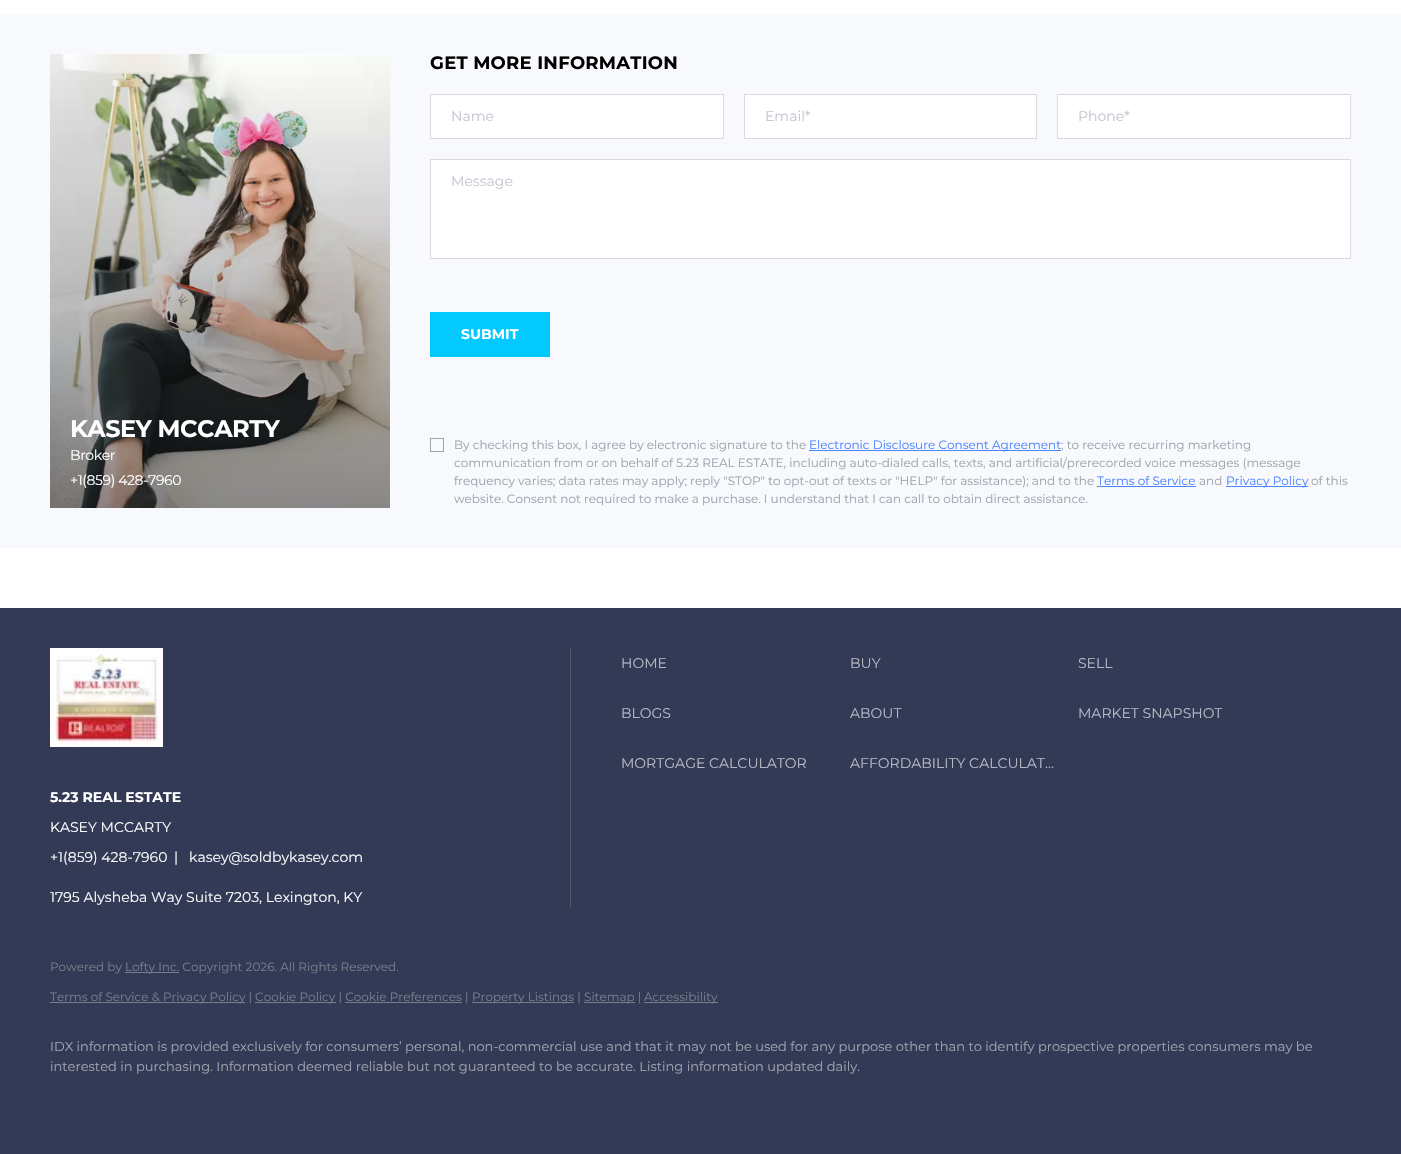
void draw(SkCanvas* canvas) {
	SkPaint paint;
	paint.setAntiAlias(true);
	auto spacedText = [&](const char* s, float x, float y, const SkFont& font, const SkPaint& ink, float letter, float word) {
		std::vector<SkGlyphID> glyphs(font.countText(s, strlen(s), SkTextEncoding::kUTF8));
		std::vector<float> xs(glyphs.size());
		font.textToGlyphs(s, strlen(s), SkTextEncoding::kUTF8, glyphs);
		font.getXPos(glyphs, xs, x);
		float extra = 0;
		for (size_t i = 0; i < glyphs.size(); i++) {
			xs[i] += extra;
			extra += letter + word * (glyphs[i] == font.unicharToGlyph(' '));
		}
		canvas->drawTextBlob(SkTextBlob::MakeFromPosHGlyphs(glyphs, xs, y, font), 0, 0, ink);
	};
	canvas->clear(0xffffffff);
	paint.setColor(0xfff8f9fd);
	canvas->drawRect(SkRect::MakeXYWH(0, 14, 1401, 534), paint);
	canvas->drawImageRect(SkImages::DeferredFromEncodedData(SkData::MakeFromFileName("img1.png")), SkRect::MakeXYWH(50, 54, 340, 454), SkSamplingOptions());
	SkFont f1(fontMgr->matchFamilyStyle("Montserrat", SkFontStyle::Bold()), 24);
	f1.setSubpixel(true);
	paint.setColor(0xffffffff);
	spacedText("KASEY MCCARTY", 70, 437, f1, paint, -0.5, 0);
	SkFont f2(fontMgr->matchFamilyStyle("Montserrat", SkFontStyle::Normal()), 14);
	f2.setSubpixel(true);
	spacedText("Broker", 70, 460, f2, paint, -0.4, 0);
	spacedText("+1(859) 428-7960", 70, 485, f2, paint, -0.4, 0);
	SkFont f3(fontMgr->matchFamilyStyle("Montserrat", SkFontStyle::Bold()), 18);
	f3.setSubpixel(true);
	paint.setColor(0xff000000);
	spacedText("GET MORE INFORMATION", 430, 69, f3, paint, 0.25, 0);
	paint.setColor(0xffffffff);
	canvas->drawRect(SkRect::MakeXYWH(430.5, 94.5, 293, 44), paint);
	paint.setStroke(true);
	paint.setStrokeWidth(1);
	paint.setColor(0xffdadada);
	canvas->drawRect(SkRect::MakeXYWH(430.5, 94.5, 293, 44), paint);
	paint.setStroke(false);
	paint.setColor(0xffc6c8d1);
	canvas->drawString("Name", 451, 121, f2, paint);
	paint.setColor(0xffffffff);
	canvas->drawRect(SkRect::MakeXYWH(744.5, 94.5, 292, 44), paint);
	paint.setStroke(true);
	paint.setColor(0xffdadada);
	canvas->drawRect(SkRect::MakeXYWH(744.5, 94.5, 292, 44), paint);
	paint.setStroke(false);
	paint.setColor(0xffc6c8d1);
	canvas->drawString("Email*", 765, 121, f2, paint);
	paint.setColor(0xffffffff);
	canvas->drawRect(SkRect::MakeXYWH(1057.5, 94.5, 293, 44), paint);
	paint.setStroke(true);
	paint.setColor(0xffdadada);
	canvas->drawRect(SkRect::MakeXYWH(1057.5, 94.5, 293, 44), paint);
	paint.setStroke(false);
	paint.setColor(0xffc6c8d1);
	canvas->drawString("Phone*", 1078, 121, f2, paint);
	paint.setColor(0xffffffff);
	canvas->drawRect(SkRect::MakeXYWH(430.5, 159.5, 920, 99), paint);
	paint.setStroke(true);
	paint.setColor(0xffdadada);
	canvas->drawRect(SkRect::MakeXYWH(430.5, 159.5, 920, 99), paint);
	paint.setStroke(false);
	paint.setColor(0xffc6c8d1);
	canvas->drawString("Message", 451, 186, f2, paint);
	paint.setColor(0xff03c9ff);
	canvas->drawRect(SkRect::MakeXYWH(430, 312, 120, 45), paint);
	SkFont f4(fontMgr->matchFamilyStyle("Montserrat", SkFontStyle::Bold()), 14);
	f4.setSubpixel(true);
	paint.setColor(0xffffffff);
	canvas->drawString("SUBMIT", 461, 339, f4, paint);
	paint.setStroke(true);
	paint.setColor(0xffa0a3af);
	canvas->drawRect(SkRect::MakeXYWH(430.5, 438.5, 13, 13), paint);
	SkFont f5(fontMgr->matchFamilyStyle("Montserrat", SkFontStyle::Normal()), 12);
	f5.setSubpixel(true);
	paint.setStroke(false);
	canvas->drawString("By checking this box, I agree by electronic signature to the", 454, 449, f5, paint);
	paint.setColor(0xff4c84ff);
	canvas->drawRect(SkRect::MakeXYWH(809, 450, 252, 1), paint);
	canvas->drawString("Electronic Disclosure Consent Agreement", 809, 449, f5, paint);
	paint.setColor(0xffa0a3af);
	canvas->drawString("; to receive recurring marketing", 1061, 449, f5, paint);
	canvas->drawString("communication from or on behalf of 5.23 REAL ESTATE, including auto-dialed calls, texts, and artificial/prerecorded voice messages (message", 454, 467, f5, paint);
	canvas->drawString("frequency varies; data rates may apply; reply \"STOP\" to opt-out of texts or \"HELP\" for assistance); and to the", 454, 485, f5, paint);
	paint.setColor(0xff4c84ff);
	canvas->drawString("Terms of Service", 1097, 485, f5, paint);
	canvas->drawRect(SkRect::MakeXYWH(1097, 486, 99, 1), paint);
	paint.setColor(0xffa0a3af);
	canvas->drawString("and", 1199, 485, f5, paint);
	paint.setColor(0xff4c84ff);
	canvas->drawRect(SkRect::MakeXYWH(1226, 486, 82, 1), paint);
	canvas->drawString("Privacy Policy", 1226, 485, f5, paint);
	paint.setColor(0xffa0a3af);
	canvas->drawString("of this", 1311, 485, f5, paint);
	canvas->drawString("website. Consent not required to make a purchase. I understand that I can call to obtain direct assistance.", 454, 503, f5, paint);
	paint.setColor(0xff333a56);
	canvas->drawRect(SkRect::MakeXYWH(0, 608, 1401, 546), paint);
	paint.setColor(0xff52586f);
	canvas->drawRect(SkRect::MakeXYWH(570, 648, 1, 259), paint);
	paint.setColor(0xffb7bac5);
	canvas->drawString("HOME", 621, 668, f2, paint);
	canvas->drawString("BLOGS", 621, 718, f2, paint);
	canvas->drawString("MORTGAGE CALCULATOR", 621, 768, f2, paint);
	canvas->drawString("BUY", 850, 668, f2, paint);
	canvas->drawString("ABOUT", 850, 718, f2, paint);
	canvas->drawString("AFFORDABILITY CALCULAT…", 850, 768, f2, paint);
	canvas->drawString("SELL", 1078, 668, f2, paint);
	canvas->drawString("MARKET SNAPSHOT", 1078, 718, f2, paint);
	canvas->drawImageRect(SkImages::DeferredFromEncodedData(SkData::MakeFromFileName("img2.png")), SkRect::MakeXYWH(50, 648, 113, 99), SkSamplingOptions());
	paint.setColor(0xffffffff);
	canvas->drawString("5.23 REAL ESTATE", 50, 802, f4, paint);
	canvas->drawString("KASEY MCCARTY", 50, 832, f2, paint);
	canvas->drawString("+1(859) 428-7960", 50, 862, f2, paint);
	canvas->drawString("|", 174, 862, f2, paint);
	canvas->drawString("kasey@soldbykasey.com", 189, 862, f2, paint);
	canvas->drawString("1795 Alysheba Way Suite 7203, Lexington, KY", 50, 902, f2, paint);
	paint.setColor(0xff797e8b);
	canvas->drawString("Powered by", 50, 971, f5, paint);
	canvas->drawRect(SkRect::MakeXYWH(125, 972, 54, 1), paint);
	canvas->drawString("Lofty Inc. Copyright 2026. All Rights Reserved.", 125, 971, f5, paint);
	canvas->drawRect(SkRect::MakeXYWH(50, 1002, 195, 1), paint);
	canvas->drawString("Terms of Service & Privacy Policy |", 50, 1001, f5, paint);
	canvas->drawRect(SkRect::MakeXYWH(255, 1002, 81, 1), paint);
	canvas->drawString("Cookie Policy | Cookie Preferences |", 255, 1001, f5, paint);
	canvas->drawRect(SkRect::MakeXYWH(472, 1002, 102, 1), paint);
	canvas->drawString("Property Listings |", 472, 1001, f5, paint);
	canvas->drawRect(SkRect::MakeXYWH(584, 1002, 51, 1), paint);
	canvas->drawString("Sitemap |", 584, 1001, f5, paint);
	canvas->drawRect(SkRect::MakeXYWH(644, 1002, 74, 1), paint);
	canvas->drawString("Accessibility", 644, 1001, f5, paint);
	canvas->drawRect(SkRect::MakeXYWH(345, 1002, 117, 1), paint);
	SkFont f6(fontMgr->matchFamilyStyle("Montserrat", SkFontStyle::Normal()), 13);
	f6.setSubpixel(true);
	paint.setColor(0xffa0a3af);
	canvas->drawString("IDX information is provided exclusively for consumers’ personal, non-commercial use and that it may not be used for any purpose other than to identify prospective properties consumers may be", 50, 1051, f6, paint);
	canvas->drawString("interested in purchasing. Information deemed reliable but not guaranteed to be accurate. Listing information updated daily.", 50, 1071, f6, paint);
}
